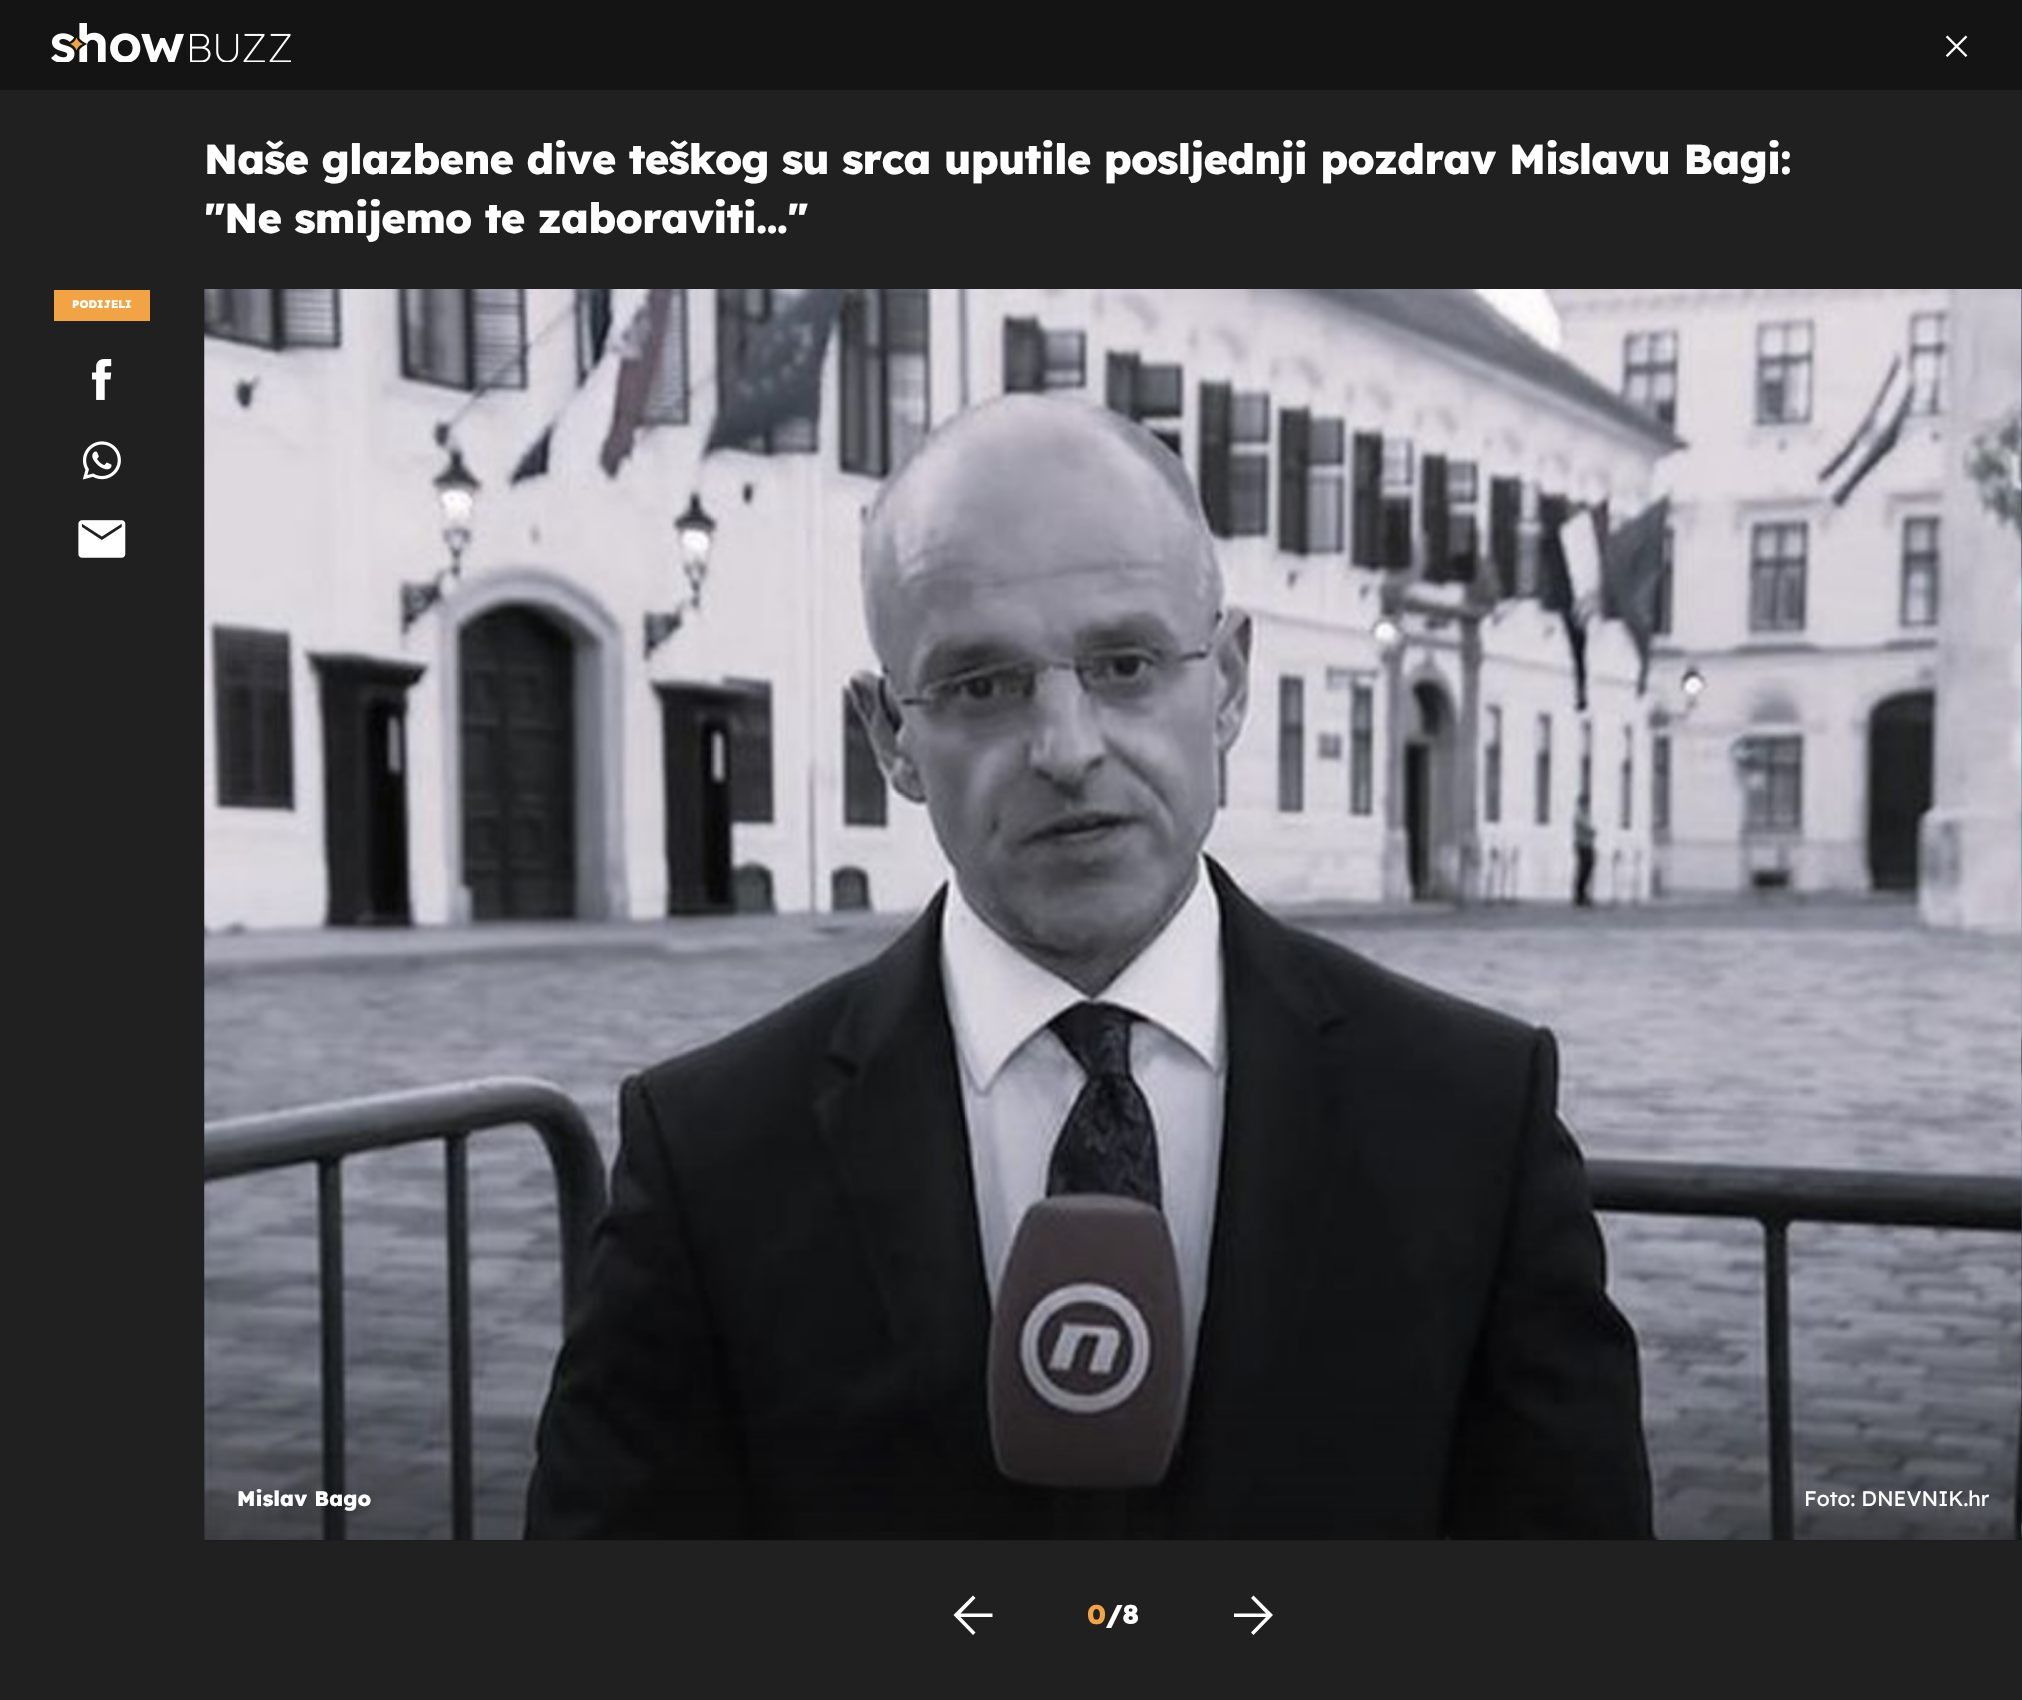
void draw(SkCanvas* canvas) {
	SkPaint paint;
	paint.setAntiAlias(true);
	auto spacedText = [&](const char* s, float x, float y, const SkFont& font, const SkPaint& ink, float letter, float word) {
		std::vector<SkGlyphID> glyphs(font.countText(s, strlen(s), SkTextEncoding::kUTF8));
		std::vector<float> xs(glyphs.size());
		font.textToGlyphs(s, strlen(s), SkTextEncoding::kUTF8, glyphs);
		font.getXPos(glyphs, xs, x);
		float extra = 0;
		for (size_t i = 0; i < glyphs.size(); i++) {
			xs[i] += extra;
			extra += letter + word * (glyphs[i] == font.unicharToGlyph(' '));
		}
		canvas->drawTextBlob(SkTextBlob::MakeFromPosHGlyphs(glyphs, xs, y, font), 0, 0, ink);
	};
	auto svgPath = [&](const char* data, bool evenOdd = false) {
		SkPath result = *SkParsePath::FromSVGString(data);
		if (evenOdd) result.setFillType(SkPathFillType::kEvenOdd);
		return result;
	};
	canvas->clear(0xff202020);
	paint.setColor(0xff141414);
	canvas->drawRect(SkRect::MakeXYWH(0, 0, 2022, 90), paint);
	canvas->drawImageRect(SkImages::DeferredFromEncodedData(SkData::MakeFromFileName("img1.png")), SkRect::MakeXYWH(51, 23, 240, 39), SkSamplingOptions());
	canvas->drawImageRect(SkImages::DeferredFromEncodedData(SkData::MakeFromFileName("img2.png")), SkRect::MakeXYWH(1945, 35, 23, 22), SkSamplingOptions());
	SkFont f1(fontMgr->matchFamilyStyle("Lexend", SkFontStyle(800, SkFontStyle::kNormal_Width, SkFontStyle::kUpright_Slant)), 41.8);
	f1.setSubpixel(true);
	paint.setColor(0xffffffff);
	spacedText("Naše glazbene dive teškog su srca uputile posljednji pozdrav Mislavu Bagi:", 204, 174, f1, paint, -0.85, 0);
	spacedText("\"Ne smijemo te zaboraviti...\"", 204, 233, f1, paint, -0.85, 0);
	paint.setColor(0xfff2a444);
	canvas->drawRect(SkRect::MakeXYWH(54, 290, 96, 31), paint);
	SkFont f2(fontMgr->matchFamilyStyle("Lexend", SkFontStyle(800, SkFontStyle::kNormal_Width, SkFontStyle::kUpright_Slant)), 11);
	f2.setSubpixel(true);
	paint.setColor(0xffffffff);
	canvas->drawString("PODIJELI", 72, 308, f2, paint);
	canvas->drawImageRect(SkImages::DeferredFromEncodedData(SkData::MakeFromFileName("img3.png")), SkRect::MakeXYWH(92, 359, 20, 41), SkSamplingOptions());
	canvas->drawImageRect(SkImages::DeferredFromEncodedData(SkData::MakeFromFileName("img4.png")), SkRect::MakeXYWH(82, 441, 39, 39), SkSamplingOptions());
	canvas->drawImageRect(SkImages::DeferredFromEncodedData(SkData::MakeFromFileName("img5.png")), SkRect::MakeXYWH(78, 520, 48, 38), SkSamplingOptions());
	canvas->drawImageRect(SkImages::DeferredFromEncodedData(SkData::MakeFromFileName("img6.png")), SkRect::MakeXYWH(204, 289, 1818, 1251), SkSamplingOptions());
	{
		const SkColor colors[] = {0x66141414, 0x00141414};
		const float stops[] = {0, 1};
		const SkPoint ends[] = {{1113, 1541}, {1113, 1394}};
		paint.setShader(SkGradientShader::MakeLinear(ends, colors, stops, 2, SkTileMode::kClamp));
		paint.setAlpha(255);
	}
	canvas->drawRect(SkRect::MakeXYWH(204, 1402, 1818, 139), paint);
	SkFont f3(fontMgr->matchFamilyStyle("Lexend", SkFontStyle(800, SkFontStyle::kNormal_Width, SkFontStyle::kUpright_Slant)), 21);
	f3.setSubpixel(true);
	paint.setShader(nullptr);
	paint.setColor(0xffffffff);
	canvas->drawString("Mislav Bago", 237, 1506, f3, paint);
	SkFont f4(fontMgr->matchFamilyStyle("Lexend", SkFontStyle::Normal()), 21);
	f4.setSubpixel(true);
	canvas->drawString("Foto: DNEVNIK.hr", 1804, 1506, f4, paint);
	canvas->drawImageRect(SkImages::DeferredFromEncodedData(SkData::MakeFromFileName("img7.png")), SkRect::MakeXYWH(2021, 289, 1, 1251), SkSamplingOptions());
	canvas->drawPath(svgPath("M973 1635L975.5 1632.5L960.5 1617H992.5V1613.5H960.5L975.5 1598L973 1595.5L953.5 1615Z"), paint);
	SkFont f5(fontMgr->matchFamilyStyle("Lexend", SkFontStyle(800, SkFontStyle::kNormal_Width, SkFontStyle::kUpright_Slant)), 27);
	f5.setSubpixel(true);
	paint.setColor(0xfff2a444);
	canvas->drawString("0", 1087, 1624, f5, paint);
	paint.setColor(0xffffffff);
	canvas->drawString("/8", 1106, 1624, f5, paint);
	canvas->drawPath(svgPath("M1253.5 1635L1251 1632.5L1266 1617H1234V1613.5H1266L1251 1598L1253.5 1595.5L1273 1615Z"), paint);
}
